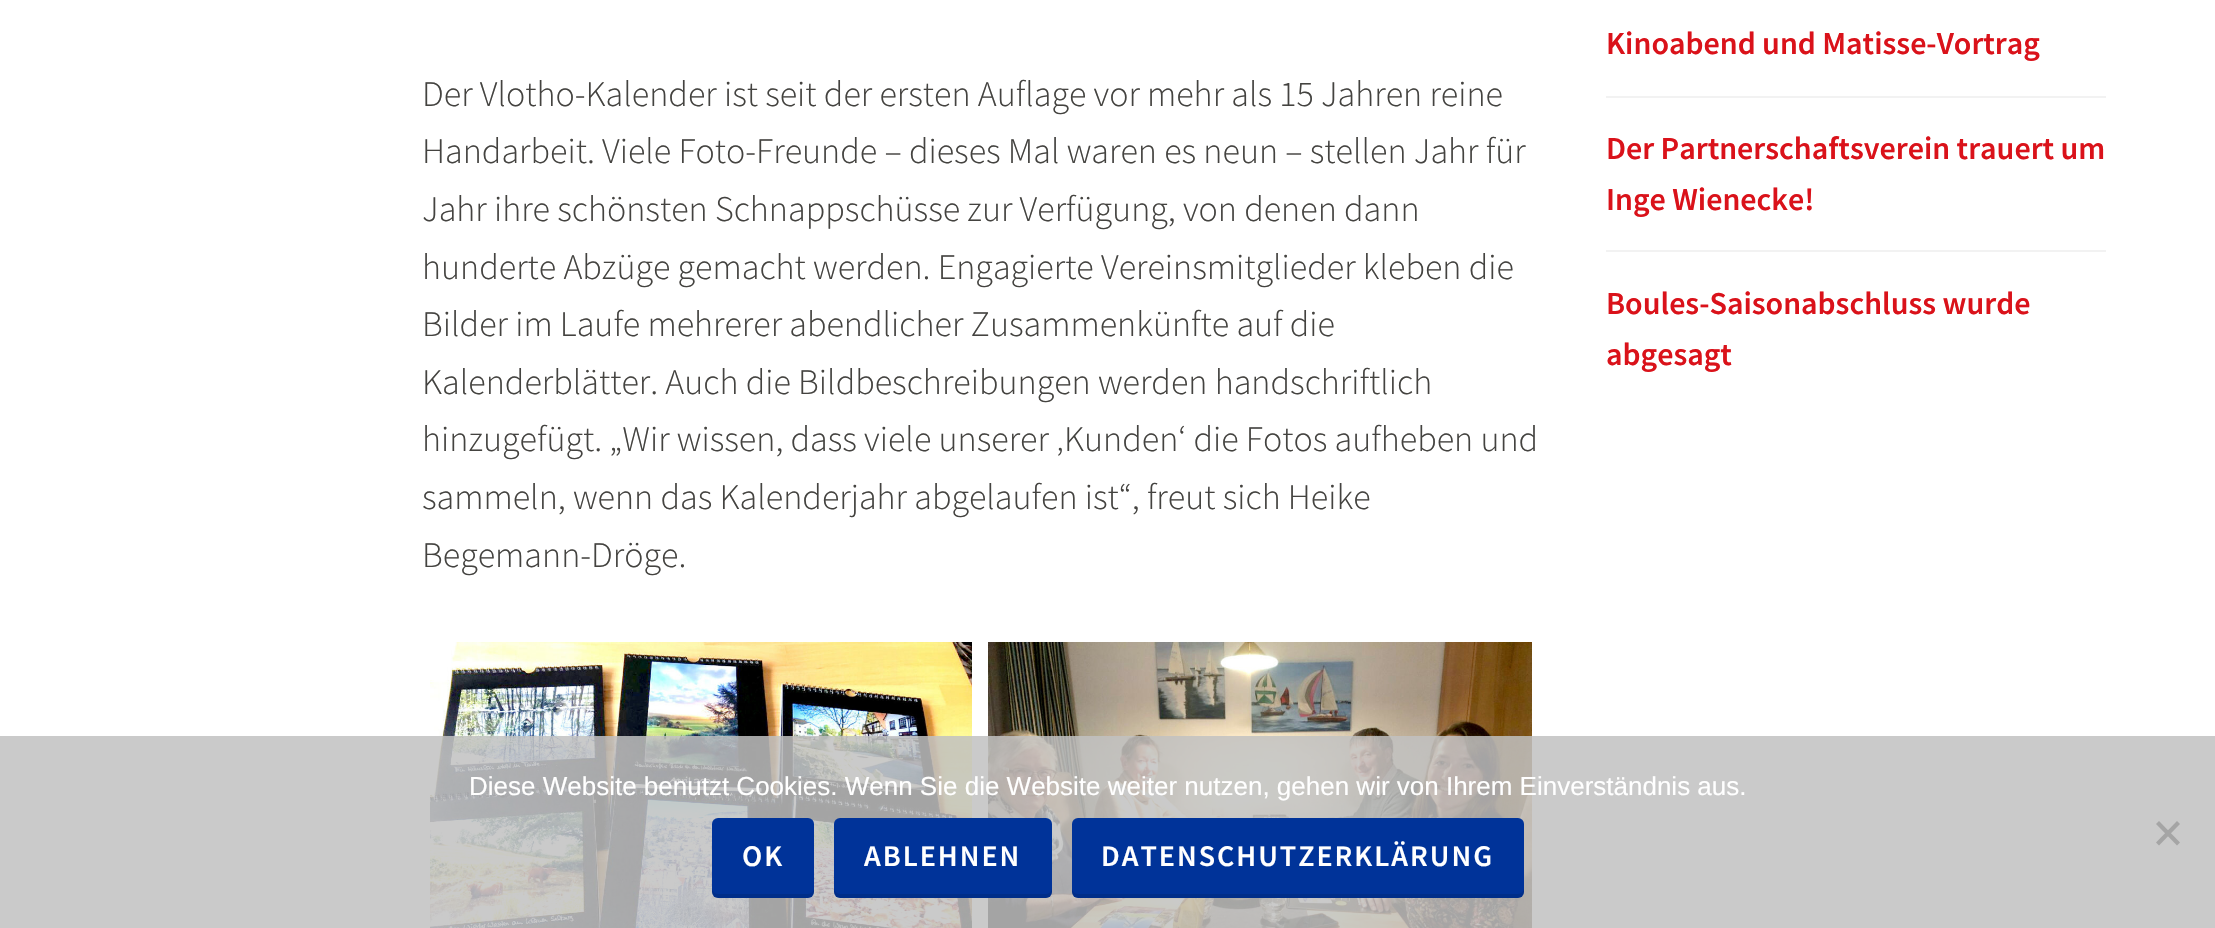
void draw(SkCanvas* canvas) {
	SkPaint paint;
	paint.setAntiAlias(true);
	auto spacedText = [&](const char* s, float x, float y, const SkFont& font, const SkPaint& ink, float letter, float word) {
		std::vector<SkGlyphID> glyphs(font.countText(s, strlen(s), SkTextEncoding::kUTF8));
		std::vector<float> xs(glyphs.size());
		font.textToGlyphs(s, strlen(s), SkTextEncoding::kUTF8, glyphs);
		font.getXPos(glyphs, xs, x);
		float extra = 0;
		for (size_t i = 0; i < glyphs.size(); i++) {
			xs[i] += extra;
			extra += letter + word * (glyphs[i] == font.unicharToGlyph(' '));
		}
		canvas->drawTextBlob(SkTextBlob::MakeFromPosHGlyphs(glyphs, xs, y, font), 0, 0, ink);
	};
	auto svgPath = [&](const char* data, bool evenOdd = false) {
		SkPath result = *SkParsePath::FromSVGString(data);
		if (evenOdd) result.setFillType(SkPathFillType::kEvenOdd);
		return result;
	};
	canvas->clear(0xffffffff);
	SkFont f1(fontMgr->matchFamilyStyle("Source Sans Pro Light", SkFontStyle(300, SkFontStyle::kNormal_Width, SkFontStyle::kUpright_Slant)), 36);
	f1.setSubpixel(true);
	paint.setColor(0xff444340);
	canvas->drawString("Der Vlotho-Kalender ist seit der ersten Auflage vor mehr als 15 Jahren reine", 422, 106, f1, paint);
	canvas->drawString("Handarbeit. Viele Foto-Freunde – dieses Mal waren es neun – stellen Jahr für", 422, 163, f1, paint);
	canvas->drawString("Jahr ihre schönsten Schnappschüsse zur Verfügung, von denen dann", 422, 221, f1, paint);
	canvas->drawString("hunderte Abzüge gemacht werden. Engagierte Vereinsmitglieder kleben die", 422, 279, f1, paint);
	canvas->drawString("Bilder im Laufe mehrerer abendlicher Zusammenkünfte auf die", 422, 336, f1, paint);
	canvas->drawString("Kalenderblätter. Auch die Bildbeschreibungen werden handschriftlich", 422, 394, f1, paint);
	canvas->drawString("hinzugefügt. „Wir wissen, dass viele unserer ‚Kunden‘ die Fotos aufheben und", 422, 451, f1, paint);
	canvas->drawString("sammeln, wenn das Kalenderjahr abgelaufen ist“, freut sich Heike", 422, 509, f1, paint);
	canvas->drawString("Begemann-Dröge.", 422, 567, f1, paint);
	canvas->drawImageRect(SkImages::DeferredFromEncodedData(SkData::MakeFromFileName("img1.png")), SkRect::MakeXYWH(430, 642, 542, 286), SkSamplingOptions());
	canvas->drawImageRect(SkImages::DeferredFromEncodedData(SkData::MakeFromFileName("img2.png")), SkRect::MakeXYWH(988, 642, 544, 286), SkSamplingOptions());
	SkFont f2(fontMgr->matchFamilyStyle("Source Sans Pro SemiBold", SkFontStyle(600, SkFontStyle::kNormal_Width, SkFontStyle::kUpright_Slant)), 32);
	f2.setSubpixel(true);
	paint.setColor(0xffda121a);
	canvas->drawString("Kinoabend und Matisse-Vortrag", 1606, 54, f2, paint);
	paint.setColor(0xfff2f2f2);
	canvas->drawRect(SkRect::MakeXYWH(1606, 96, 500, 2), paint);
	paint.setColor(0xffda121a);
	canvas->drawString("Der Partnerschaftsverein trauert um", 1606, 159, f2, paint);
	canvas->drawString("Inge Wienecke!", 1606, 210, f2, paint);
	paint.setColor(0xfff2f2f2);
	canvas->drawRect(SkRect::MakeXYWH(1606, 250, 500, 2), paint);
	paint.setColor(0xffda121a);
	canvas->drawString("Boules-Saisonabschluss wurde", 1606, 314, f2, paint);
	canvas->drawString("abgesagt", 1606, 365, f2, paint);
	paint.setColor(0xd9c1c1c1);
	canvas->drawRect(SkRect::MakeXYWH(0, 736, 2215, 192), paint);
	SkFont f3(fontMgr->matchFamilyStyle("Liberation Sans", SkFontStyle::Normal()), 26);
	f3.setSubpixel(true);
	paint.setColor(0xffffffff);
	canvas->drawString("Diese Website benutzt Cookies. Wenn Sie die Website weiter nutzen, gehen wir von Ihrem Einverständnis aus.", 469, 795, f3, paint);
	paint.setColor(0xffa5a5a5);
	canvas->drawPath(svgPath("M2177 821L2180 824L2159 845.5L2156 842.5Z"), paint);
	canvas->drawPath(svgPath("M2156 824L2159 821L2180 842.5L2177 845.5Z"), paint);
	paint.setColor(0xff003399);
	canvas->drawRoundRect(SkRect::MakeXYWH(712, 818, 102, 80), 6, 6, paint);
	paint.setColor(0x1a000000);
	canvas->drawPath(svgPath("M712 888V892C712 895 715 898 718 898H808C811 898 814 895 814 892V888C814 891 811 894 808 894H718C715 894 712 891 712 888Z"), paint);
	SkFont f4(fontMgr->matchFamilyStyle("Source Sans Pro SemiBold", SkFontStyle(600, SkFontStyle::kNormal_Width, SkFontStyle::kUpright_Slant)), 30);
	f4.setSubpixel(true);
	paint.setColor(0xffffffff);
	spacedText("OK", 742, 866, f4, paint, 2, 0);
	paint.setColor(0xff003399);
	canvas->drawRoundRect(SkRect::MakeXYWH(834, 818, 218, 80), 6, 6, paint);
	paint.setColor(0x1a000000);
	canvas->drawPath(svgPath("M834 888V892C834 895 837 898 840 898H1046C1049 898 1052 895 1052 892V888C1052 891 1049 894 1046 894H840C837 894 834 891 834 888Z"), paint);
	paint.setColor(0xffffffff);
	spacedText("ABLEHNEN", 864, 866, f4, paint, 2, 0);
	paint.setColor(0xff003399);
	canvas->drawRoundRect(SkRect::MakeXYWH(1072, 818, 452, 80), 6, 6, paint);
	paint.setColor(0x1a000000);
	canvas->drawPath(svgPath("M1072 888V892C1072 895 1075 898 1078 898H1518C1521 898 1524 895 1524 892V888C1524 891 1521 894 1518 894H1078C1075 894 1072 891 1072 888Z"), paint);
	paint.setColor(0xffffffff);
	spacedText("DATENSCHUTZERKLÄRUNG", 1101, 866, f4, paint, 2, 0);
}
